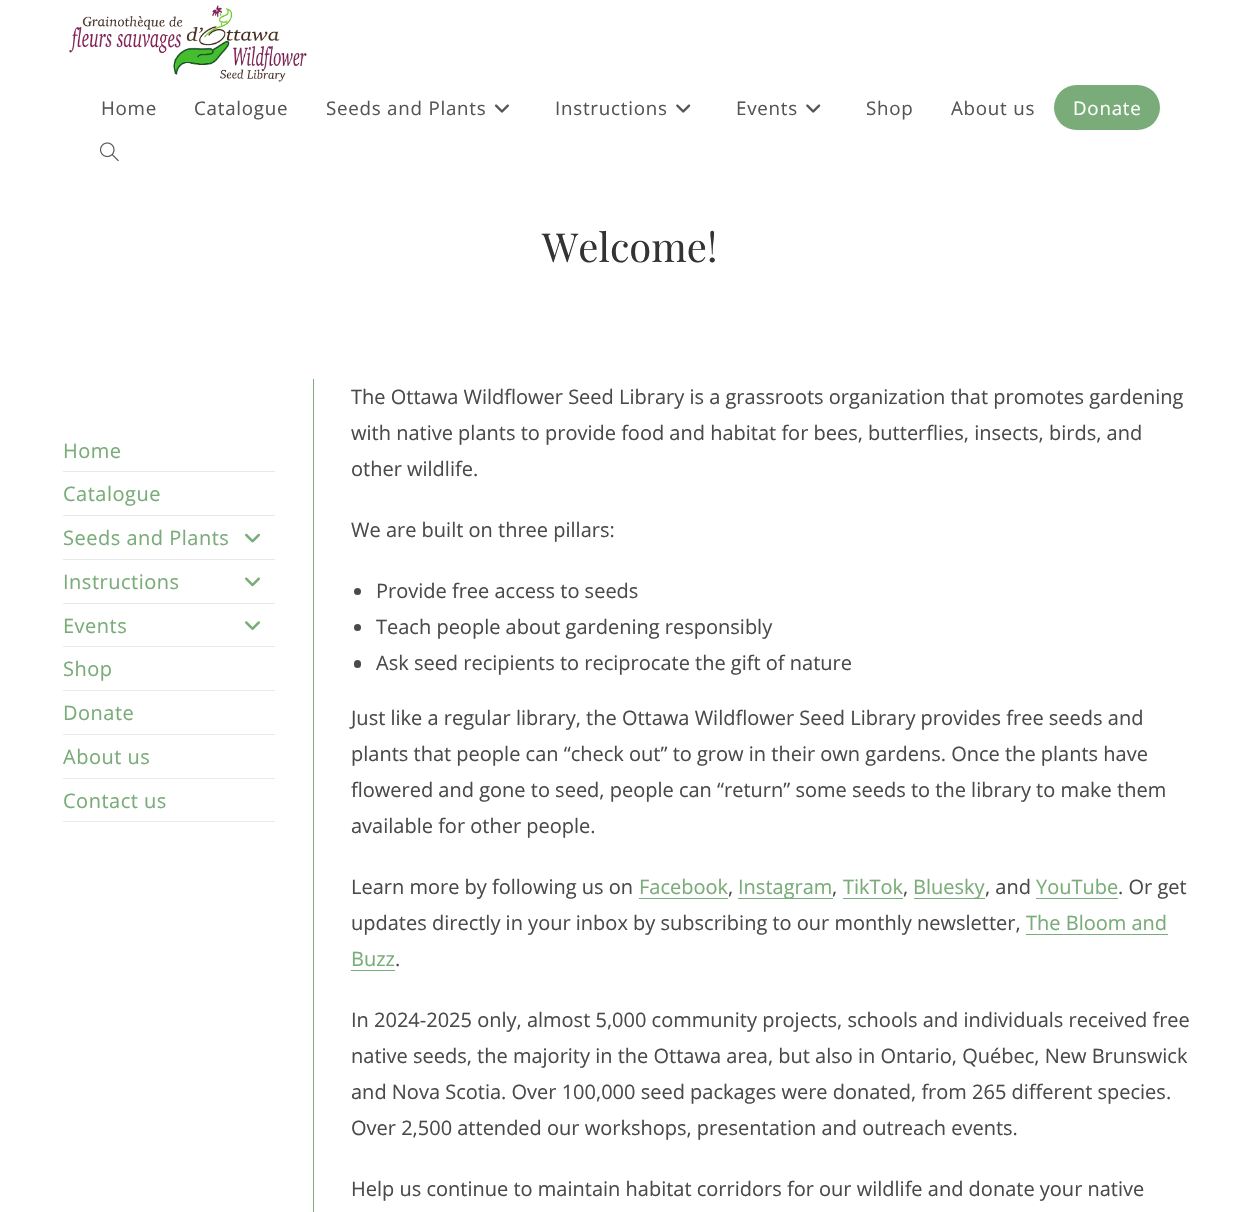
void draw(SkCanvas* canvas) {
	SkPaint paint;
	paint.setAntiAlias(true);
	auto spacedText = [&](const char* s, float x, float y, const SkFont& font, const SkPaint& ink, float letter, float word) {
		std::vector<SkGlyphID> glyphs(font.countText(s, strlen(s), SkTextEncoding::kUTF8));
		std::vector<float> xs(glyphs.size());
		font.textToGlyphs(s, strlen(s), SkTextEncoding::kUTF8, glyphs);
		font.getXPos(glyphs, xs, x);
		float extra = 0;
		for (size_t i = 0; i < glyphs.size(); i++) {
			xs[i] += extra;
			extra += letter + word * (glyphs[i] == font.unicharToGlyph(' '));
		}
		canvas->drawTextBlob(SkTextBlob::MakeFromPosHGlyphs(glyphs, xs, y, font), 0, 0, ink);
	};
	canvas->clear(0xffffffff);
	canvas->drawImageRect(SkImages::DeferredFromEncodedData(SkData::MakeFromFileName("img1.png")), SkRect::MakeXYWH(69, 5, 238, 77), SkSamplingOptions());
	SkFont f1(fontMgr->matchFamilyStyle("Open Sans", SkFontStyle::Normal()), 18.75);
	f1.setSubpixel(true);
	paint.setColor(0xff555555);
	spacedText("Home", 101, 115, f1, paint, 0.75, 0);
	spacedText("Catalogue", 194, 115, f1, paint, 0.75, 0);
	spacedText("Seeds and Plants", 326, 115, f1, paint, 0.75, 0);
	canvas->drawImageRect(SkImages::DeferredFromEncodedData(SkData::MakeFromFileName("img2.png")), SkRect::MakeXYWH(494, 104, 15, 9), SkSamplingOptions());
	spacedText("Instructions", 555, 115, f1, paint, 0.75, 0);
	canvas->drawImageRect(SkImages::DeferredFromEncodedData(SkData::MakeFromFileName("img3.png")), SkRect::MakeXYWH(676, 104, 15, 9), SkSamplingOptions());
	spacedText("Events", 736, 115, f1, paint, 0.75, 0);
	canvas->drawImageRect(SkImages::DeferredFromEncodedData(SkData::MakeFromFileName("img3.png")), SkRect::MakeXYWH(806, 104, 15, 9), SkSamplingOptions());
	spacedText("Shop", 866, 115, f1, paint, 0.75, 0);
	spacedText("About us", 951, 115, f1, paint, 0.75, 0);
	paint.setColor(0xff79ac78);
	canvas->drawRoundRect(SkRect::MakeXYWH(1054, 85, 106, 45), 22.5, 22.5, paint);
	paint.setColor(0xffffffff);
	spacedText("Donate", 1073, 115, f1, paint, 0.75, 0);
	canvas->drawImageRect(SkImages::DeferredFromEncodedData(SkData::MakeFromFileName("img4.png")), SkRect::MakeXYWH(100, 142, 19, 20), SkSamplingOptions());
	SkFont f2(fontMgr->matchFamilyStyle("Playfair Display", SkFontStyle::Normal()), 40);
	f2.setSubpixel(true);
	paint.setColor(0xff333333);
	canvas->drawString("Welcome!", 542, 262, f2, paint);
	paint.setColor(0xffe9e9e9);
	canvas->drawRect(SkRect::MakeXYWH(63, 471, 212, 1), paint);
	SkFont f3(fontMgr->matchFamilyStyle("Open Sans", SkFontStyle::Normal()), 20);
	f3.setSubpixel(true);
	paint.setColor(0xff79ac78);
	spacedText("Home", 63, 458, f3, paint, 0.5, 0);
	paint.setColor(0xffe9e9e9);
	canvas->drawRect(SkRect::MakeXYWH(63, 515, 212, 1), paint);
	paint.setColor(0xff79ac78);
	spacedText("Catalogue", 63, 501, f3, paint, 0.5, 0);
	paint.setColor(0xffe9e9e9);
	canvas->drawRect(SkRect::MakeXYWH(63, 559, 212, 1), paint);
	paint.setColor(0xff79ac78);
	spacedText("Seeds and Plants", 63, 545, f3, paint, 0.5, 0);
	canvas->drawImageRect(SkImages::DeferredFromEncodedData(SkData::MakeFromFileName("img5.png")), SkRect::MakeXYWH(245, 533, 15, 10), SkSamplingOptions());
	paint.setColor(0xffe9e9e9);
	canvas->drawRect(SkRect::MakeXYWH(63, 603, 212, 1), paint);
	paint.setColor(0xff79ac78);
	spacedText("Instructions", 63, 589, f3, paint, 0.5, 0);
	canvas->drawImageRect(SkImages::DeferredFromEncodedData(SkData::MakeFromFileName("img6.png")), SkRect::MakeXYWH(245, 577, 15, 10), SkSamplingOptions());
	paint.setColor(0xffe9e9e9);
	canvas->drawRect(SkRect::MakeXYWH(63, 646, 212, 1), paint);
	paint.setColor(0xff79ac78);
	spacedText("Events", 63, 633, f3, paint, 0.5, 0);
	canvas->drawImageRect(SkImages::DeferredFromEncodedData(SkData::MakeFromFileName("img7.png")), SkRect::MakeXYWH(245, 621, 15, 9), SkSamplingOptions());
	paint.setColor(0xffe9e9e9);
	canvas->drawRect(SkRect::MakeXYWH(63, 690, 212, 1), paint);
	paint.setColor(0xff79ac78);
	spacedText("Shop", 63, 676, f3, paint, 0.5, 0);
	paint.setColor(0xffe9e9e9);
	canvas->drawRect(SkRect::MakeXYWH(63, 734, 212, 1), paint);
	paint.setColor(0xff79ac78);
	spacedText("Donate", 63, 720, f3, paint, 0.5, 0);
	paint.setColor(0xffe9e9e9);
	canvas->drawRect(SkRect::MakeXYWH(63, 778, 212, 1), paint);
	paint.setColor(0xff79ac78);
	spacedText("About us", 63, 764, f3, paint, 0.5, 0);
	paint.setColor(0xffe9e9e9);
	canvas->drawRect(SkRect::MakeXYWH(63, 821, 212, 1), paint);
	paint.setColor(0xff79ac78);
	spacedText("Contact us", 63, 808, f3, paint, 0.5, 0);
	canvas->drawRect(SkRect::MakeXYWH(313, 379, 1, 833), paint);
	paint.setColor(0xff4a4a4a);
	canvas->drawString("The Ottawa Wildflower Seed Library is a grassroots organization that promotes gardening", 351, 404, f3, paint);
	canvas->drawString("with native plants to provide food and habitat for bees, butterflies, insects, birds, and", 351, 440, f3, paint);
	canvas->drawString("other wildlife.", 351, 476, f3, paint);
	canvas->drawString("We are built on three pillars:", 351, 537, f3, paint);
	canvas->drawCircle(357.5, 591.5, 3.5, paint);
	canvas->drawString("Provide free access to seeds", 376, 598, f3, paint);
	canvas->drawCircle(357.5, 627.5, 3.5, paint);
	canvas->drawString("Teach people about gardening responsibly", 376, 634, f3, paint);
	canvas->drawRoundRect(SkRect::MakeXYWH(354, 660, 7, 8), 3.5, 3.5, paint);
	canvas->drawString("Ask seed recipients to reciprocate the gift of nature", 376, 670, f3, paint);
	canvas->drawString("Just like a regular library, the Ottawa Wildflower Seed Library provides free seeds and", 351, 725, f3, paint);
	canvas->drawString("plants that people can “check out” to grow in their own gardens. Once the plants have", 351, 761, f3, paint);
	canvas->drawString("flowered and gone to seed, people can “return” some seeds to the library to make them", 351, 797, f3, paint);
	canvas->drawString("available for other people.", 351, 833, f3, paint);
	canvas->drawString("Learn more by following us on", 351, 894, f3, paint);
	paint.setColor(0xff79ac78);
	canvas->drawString("Facebook", 639, 894, f3, paint);
	canvas->drawRect(SkRect::MakeXYWH(639, 898, 89, 1), paint);
	paint.setColor(0xff4a4a4a);
	canvas->drawString(",", 728, 894, f3, paint);
	paint.setColor(0xff79ac78);
	canvas->drawRect(SkRect::MakeXYWH(738, 898, 95, 1), paint);
	canvas->drawString("Instagram", 738, 894, f3, paint);
	paint.setColor(0xff4a4a4a);
	canvas->drawString(",", 832, 894, f3, paint);
	paint.setColor(0xff79ac78);
	canvas->drawString("TikTok", 843, 894, f3, paint);
	canvas->drawRect(SkRect::MakeXYWH(843, 898, 60, 1), paint);
	paint.setColor(0xff4a4a4a);
	canvas->drawString(",", 903, 894, f3, paint);
	paint.setColor(0xff79ac78);
	canvas->drawRect(SkRect::MakeXYWH(914, 898, 71, 1), paint);
	canvas->drawString("Bluesky", 913, 894, f3, paint);
	paint.setColor(0xff4a4a4a);
	canvas->drawString(", and", 985, 894, f3, paint);
	paint.setColor(0xff79ac78);
	canvas->drawString("YouTube", 1036, 894, f3, paint);
	canvas->drawRect(SkRect::MakeXYWH(1036, 898, 82, 1), paint);
	paint.setColor(0xff4a4a4a);
	canvas->drawString(". Or get", 1118, 894, f3, paint);
	canvas->drawString("updates directly in your inbox by subscribing to our monthly newsletter,", 351, 930, f3, paint);
	paint.setColor(0xff79ac78);
	canvas->drawString("The Bloom and", 1026, 930, f3, paint);
	canvas->drawRect(SkRect::MakeXYWH(1026, 934, 142, 1), paint);
	canvas->drawString("Buzz", 351, 966, f3, paint);
	canvas->drawRect(SkRect::MakeXYWH(351, 970, 44, 1), paint);
	paint.setColor(0xff4a4a4a);
	canvas->drawString(".", 395, 966, f3, paint);
	canvas->drawString("In 2024-2025 only, almost 5,000 community projects, schools and individuals received free", 351, 1027, f3, paint);
	canvas->drawString("native seeds, the majority in the Ottawa area, but also in Ontario, Québec, New Brunswick", 351, 1063, f3, paint);
	canvas->drawString("and Nova Scotia. Over 100,000 seed packages were donated, from 265 different species.", 351, 1099, f3, paint);
	canvas->drawString("Over 2,500 attended our workshops, presentation and outreach events.", 351, 1135, f3, paint);
	canvas->drawString("Help us continue to maintain habitat corridors for our wildlife and donate your native", 351, 1196, f3, paint);
}
